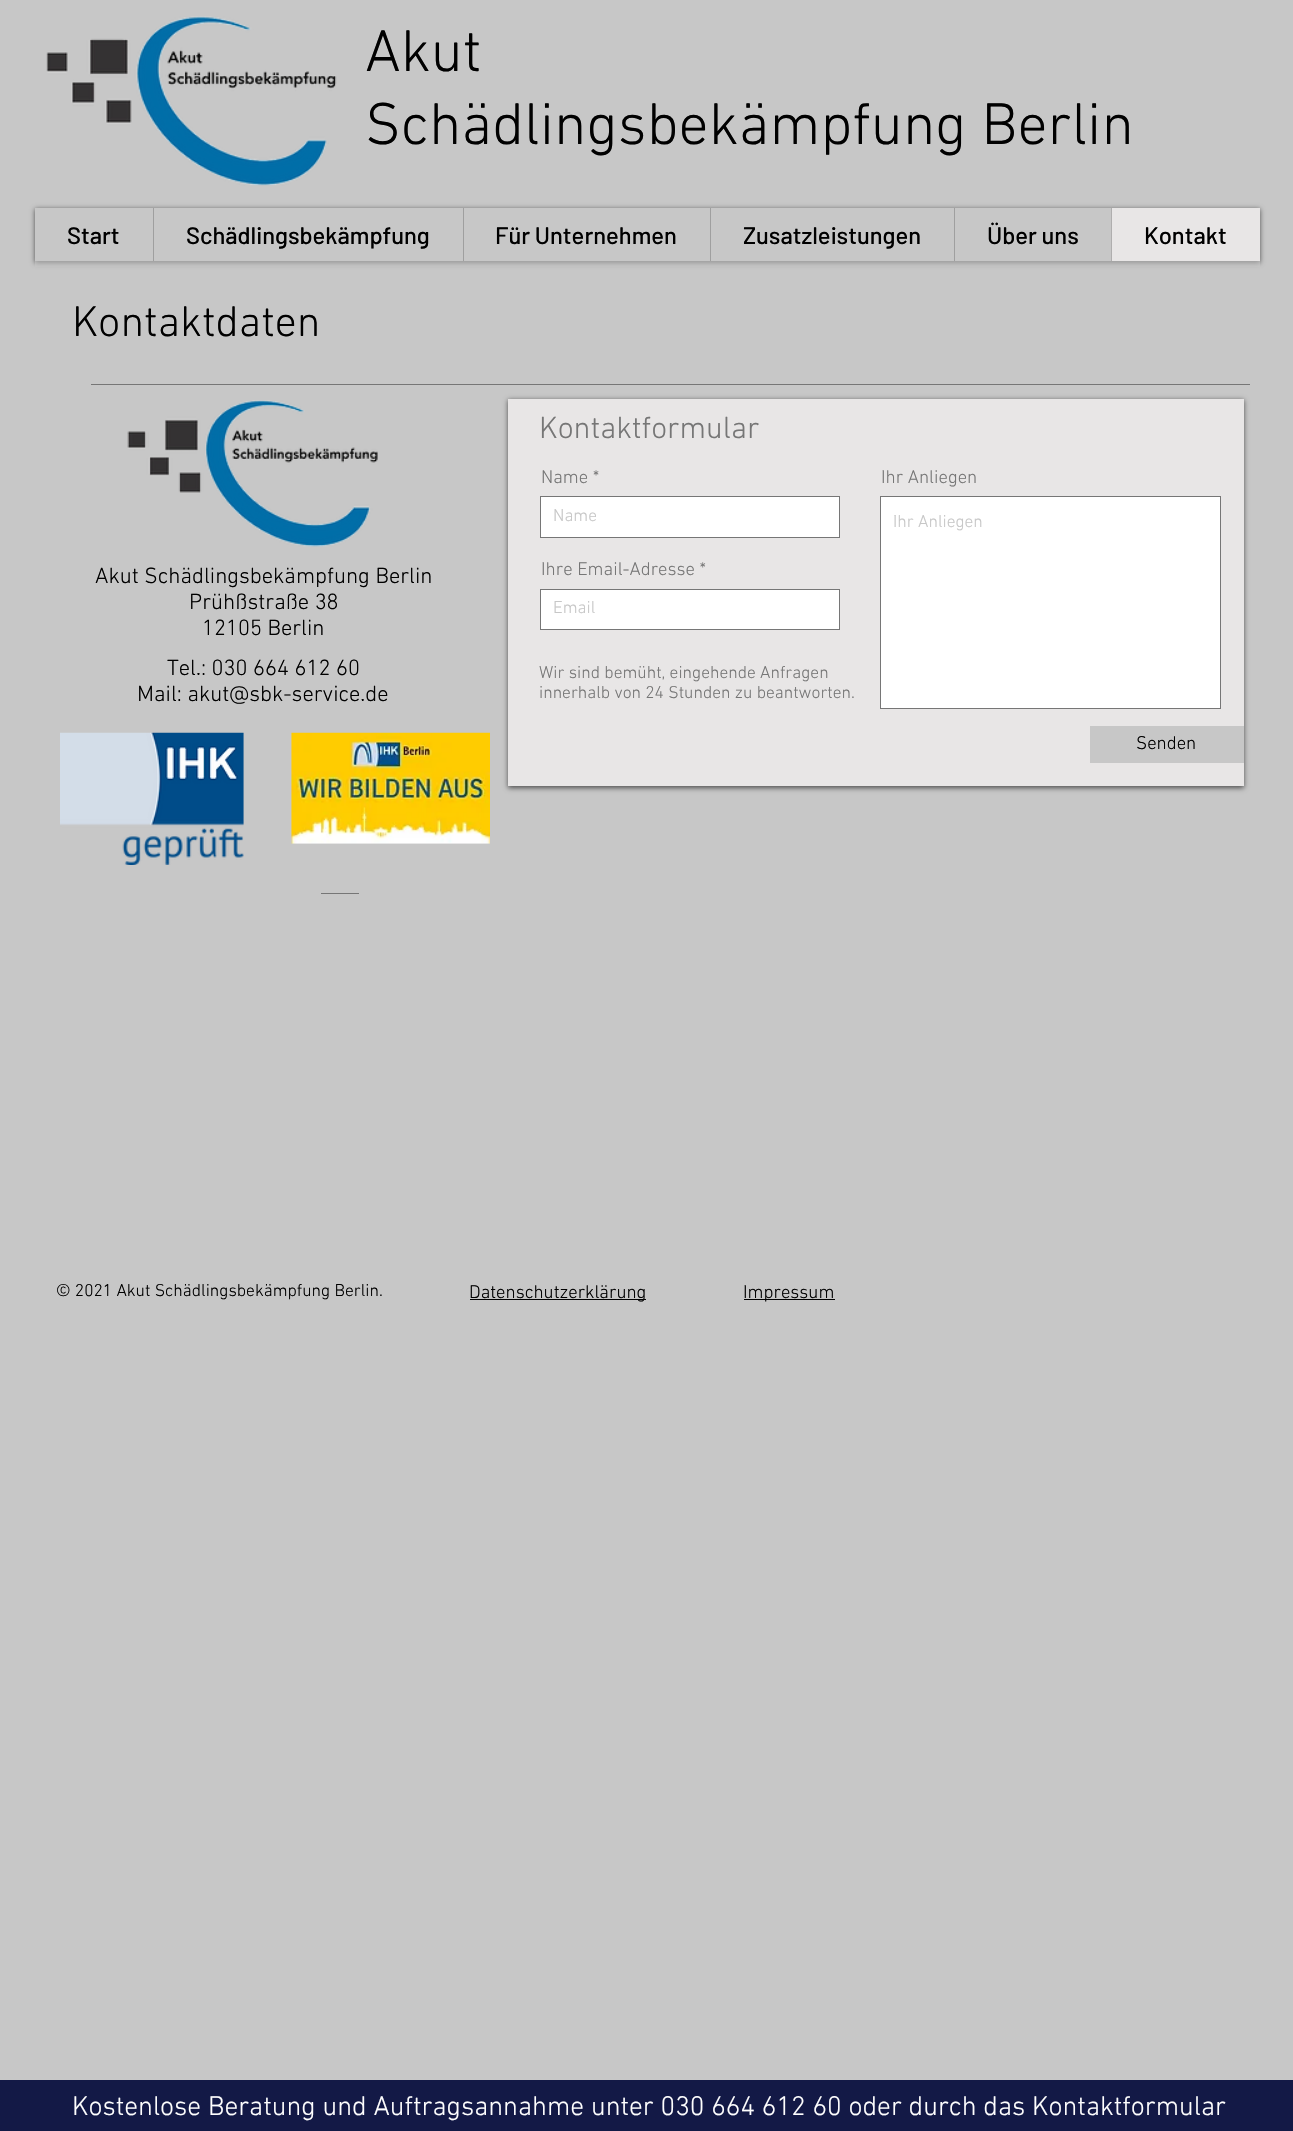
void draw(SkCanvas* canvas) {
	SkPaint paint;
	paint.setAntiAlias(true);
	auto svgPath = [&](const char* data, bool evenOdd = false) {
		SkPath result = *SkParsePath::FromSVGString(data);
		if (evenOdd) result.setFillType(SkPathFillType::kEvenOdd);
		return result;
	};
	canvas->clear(0xffc7c7c7);
	canvas->drawImageRect(SkImages::DeferredFromEncodedData(SkData::MakeFromFileName("img1.png")), SkRect::MakeXYWH(46, 16, 291, 170), SkSamplingOptions());
	SkFont f1(fontMgr->matchFamilyStyle("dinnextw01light", SkFontStyle(300, SkFontStyle::kNormal_Width, SkFontStyle::kUpright_Slant)), 60);
	f1.setSubpixel(true);
	paint.setColor(0xff000000);
	canvas->drawString("Akut", 365, 71, f1, paint);
	canvas->drawString("Schädlingsbekämpfung Berlin", 365, 144, f1, paint);
	canvas->save();
	canvas->clipPath(svgPath("M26 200H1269V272H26ZM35 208H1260V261H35Z", true), true);
	paint.setColor(0x99000000);
	paint.setMaskFilter(SkMaskFilter::MakeBlur(kNormal_SkBlurStyle, 2.5));
	canvas->drawRect(SkRect::MakeXYWH(35, 209, 1225, 54), paint);
	paint.setMaskFilter(nullptr);
	canvas->restore();
	SkFont f2(fontMgr->matchFamilyStyle("Barlow", SkFontStyle(500, SkFontStyle::kNormal_Width, SkFontStyle::kUpright_Slant)), 23.75);
	f2.setSubpixel(true);
	paint.setColor(0xff000000);
	canvas->drawString("Start", 67, 244, f2, paint);
	paint.setColor(0xff9f9f9f);
	canvas->drawRect(SkRect::MakeXYWH(153, 208, 1, 53), paint);
	paint.setColor(0xff000000);
	canvas->drawString("Schädlingsbekämpfung", 186, 244, f2, paint);
	paint.setColor(0xff9f9f9f);
	canvas->drawRect(SkRect::MakeXYWH(463, 208, 1, 53), paint);
	paint.setColor(0xff000000);
	canvas->drawString("Für Unternehmen", 495, 244, f2, paint);
	paint.setColor(0xff9f9f9f);
	canvas->drawRect(SkRect::MakeXYWH(710, 208, 1, 53), paint);
	paint.setColor(0xff000000);
	canvas->drawString("Zusatzleistungen", 743, 244, f2, paint);
	paint.setColor(0xff9f9f9f);
	canvas->drawRect(SkRect::MakeXYWH(954, 208, 1, 53), paint);
	paint.setColor(0xff000000);
	canvas->drawString("Über uns", 987, 244, f2, paint);
	paint.setColor(0xffe8e6e6);
	canvas->drawRect(SkRect::MakeXYWH(1112, 208, 148, 53), paint);
	paint.setColor(0xffafaeae);
	canvas->drawRect(SkRect::MakeXYWH(1111, 208, 1, 53), paint);
	paint.setColor(0xff000000);
	canvas->drawString("Kontakt", 1144, 244, f2, paint);
	paint.setColor(0x99c7c7c7);
	canvas->drawRect(SkRect::MakeXYWH(35, 261, 1225, 6), paint);
	SkFont f3(fontMgr->matchFamilyStyle("dinnextw01light", SkFontStyle(300, SkFontStyle::kNormal_Width, SkFontStyle::kUpright_Slant)), 43.75);
	f3.setSubpixel(true);
	paint.setColor(0xff000000);
	canvas->drawString("Kontaktdaten", 72, 336, f3, paint);
	paint.setColor(0xff767676);
	canvas->drawRect(SkRect::MakeXYWH(91, 384, 1159, 1), paint);
	canvas->drawImageRect(SkImages::DeferredFromEncodedData(SkData::MakeFromFileName("img2.png")), SkRect::MakeXYWH(127, 400, 251, 147), SkSamplingOptions());
	paint.setColor(0x99000000);
	paint.setMaskFilter(SkMaskFilter::MakeBlur(kNormal_SkBlurStyle, 2.5));
	canvas->drawRect(SkRect::MakeXYWH(508, 400, 736, 388), paint);
	paint.setMaskFilter(nullptr);
	paint.setColor(0xffe8e6e6);
	canvas->drawRect(SkRect::MakeXYWH(508, 399, 736, 387), paint);
	SkFont f4(fontMgr->matchFamilyStyle("dinnextw01light", SkFontStyle(300, SkFontStyle::kNormal_Width, SkFontStyle::kUpright_Slant)), 31.25);
	f4.setSubpixel(true);
	paint.setColor(0xff767676);
	canvas->drawString("Kontaktformular", 539, 438, f4, paint);
	SkFont f5(fontMgr->matchFamilyStyle("dinnextw01light", SkFontStyle(300, SkFontStyle::kNormal_Width, SkFontStyle::kUpright_Slant)), 18.75);
	f5.setSubpixel(true);
	canvas->drawString("Name *", 541, 483, f5, paint);
	paint.setColor(0xffffffff);
	canvas->drawRect(SkRect::MakeXYWH(540.5, 496.5, 299, 41), paint);
	paint.setStroke(true);
	paint.setStrokeWidth(1);
	paint.setColor(0xff767676);
	canvas->drawRect(SkRect::MakeXYWH(540.5, 496.5, 299, 41), paint);
	SkFont f6(fontMgr->matchFamilyStyle("dinnextw01light", SkFontStyle(300, SkFontStyle::kNormal_Width, SkFontStyle::kUpright_Slant)), 17.5);
	f6.setSubpixel(true);
	paint.setStroke(false);
	paint.setColor(0xffc7c7c7);
	canvas->drawString("Name", 553, 521, f6, paint);
	paint.setColor(0xff767676);
	canvas->drawString("Ihr Anliegen", 881, 483, f5, paint);
	paint.setColor(0xffffffff);
	canvas->drawRect(SkRect::MakeXYWH(880.5, 496.5, 340, 212), paint);
	paint.setStroke(true);
	paint.setColor(0xff767676);
	canvas->drawRect(SkRect::MakeXYWH(880.5, 496.5, 340, 212), paint);
	paint.setStroke(false);
	paint.setColor(0xffc7c7c7);
	canvas->drawString("Ihr Anliegen", 893, 527, f6, paint);
	paint.setColor(0xff767676);
	canvas->drawString("Ihre Email-Adresse *", 541, 575, f5, paint);
	paint.setColor(0xffffffff);
	canvas->drawRect(SkRect::MakeXYWH(540.5, 589.5, 299, 40), paint);
	paint.setStroke(true);
	paint.setColor(0xff767676);
	canvas->drawRect(SkRect::MakeXYWH(540.5, 589.5, 299, 40), paint);
	paint.setStroke(false);
	paint.setColor(0xffc7c7c7);
	canvas->drawString("Email", 553, 613, f6, paint);
	paint.setColor(0xff767676);
	canvas->drawString("Wir sind bemüht, eingehende Anfragen", 539, 678, f6, paint);
	canvas->drawString("innerhalb von 24 Stunden zu beantworten.", 539, 698, f6, paint);
	paint.setColor(0xffc7c7c7);
	canvas->drawRect(SkRect::MakeXYWH(1090, 726, 154, 37), paint);
	paint.setColor(0xff000000);
	canvas->drawString("Senden", 1136, 749, f5, paint);
	SkFont f7(fontMgr->matchFamilyStyle("dinnextw01light", SkFontStyle(300, SkFontStyle::kNormal_Width, SkFontStyle::kUpright_Slant)), 22.5);
	f7.setSubpixel(true);
	canvas->drawString("Akut Schädlingsbekämpfung Berlin", 95, 583, f7, paint);
	canvas->drawString("Prühßstraße 38", 189, 609, f7, paint);
	canvas->drawString("12105 Berlin", 202, 635, f7, paint);
	canvas->drawString("Tel.: 030 664 612 60", 167, 675, f7, paint);
	canvas->drawString("Mail: akut@sbk-service.de", 137, 701, f7, paint);
	canvas->drawImageRect(SkImages::DeferredFromEncodedData(SkData::MakeFromFileName("img3.png")), SkRect::MakeXYWH(60, 732, 184, 133), SkSamplingOptions());
	canvas->drawImageRect(SkImages::DeferredFromEncodedData(SkData::MakeFromFileName("img4.png")), SkRect::MakeXYWH(291, 732, 199, 112), SkSamplingOptions());
	paint.setColor(0xff767676);
	canvas->drawRect(SkRect::MakeXYWH(321, 893, 38, 1), paint);
	paint.setColor(0xff000000);
	canvas->drawString("© 2021 Akut Schädlingsbekämpfung Berlin.", 56, 1296, f6, paint);
	canvas->drawRect(SkRect::MakeXYWH(470, 1299, 176, 1), paint);
	canvas->drawString("Datenschutzerklärung", 469, 1298, f5, paint);
	canvas->drawRect(SkRect::MakeXYWH(744, 1299, 91, 1), paint);
	canvas->drawString("Impressum", 743, 1298, f5, paint);
	paint.setColor(0xff131946);
	canvas->drawRect(SkRect::MakeXYWH(0, 2080, 1293, 51), paint);
	SkFont f8(fontMgr->matchFamilyStyle("dinnextw01light", SkFontStyle(300, SkFontStyle::kNormal_Width, SkFontStyle::kUpright_Slant)), 27.5);
	f8.setSubpixel(true);
	paint.setColor(0xffffffff);
	canvas->drawString("Kostenlose Beratung und Auftragsannahme unter 030 664 612 60 oder durch das Kontaktformular", 72, 2115, f8, paint);
}
